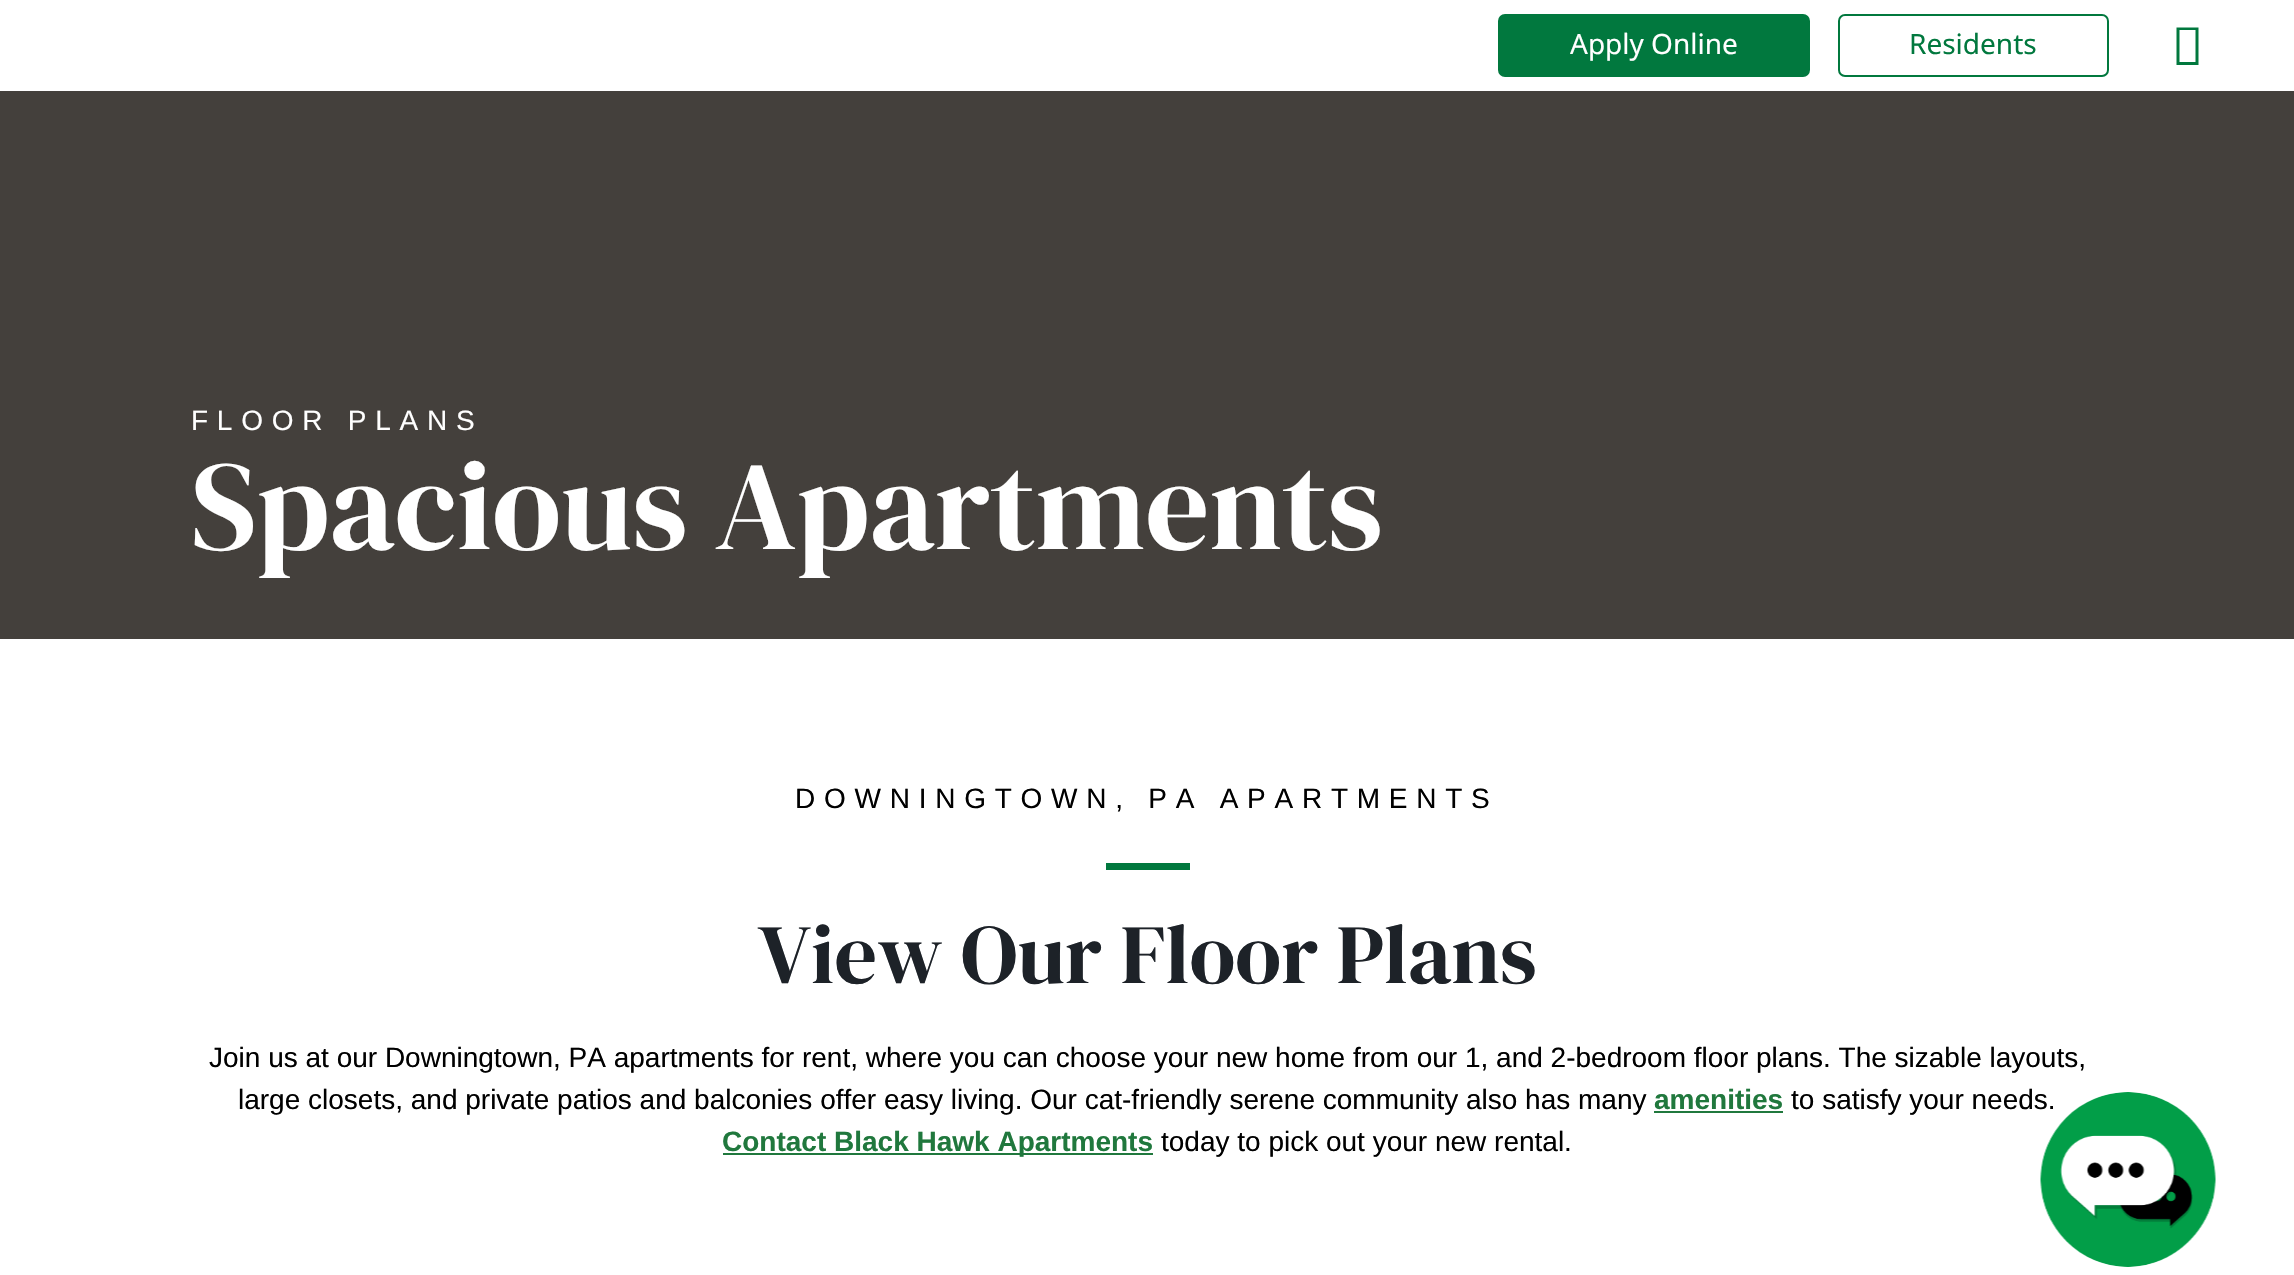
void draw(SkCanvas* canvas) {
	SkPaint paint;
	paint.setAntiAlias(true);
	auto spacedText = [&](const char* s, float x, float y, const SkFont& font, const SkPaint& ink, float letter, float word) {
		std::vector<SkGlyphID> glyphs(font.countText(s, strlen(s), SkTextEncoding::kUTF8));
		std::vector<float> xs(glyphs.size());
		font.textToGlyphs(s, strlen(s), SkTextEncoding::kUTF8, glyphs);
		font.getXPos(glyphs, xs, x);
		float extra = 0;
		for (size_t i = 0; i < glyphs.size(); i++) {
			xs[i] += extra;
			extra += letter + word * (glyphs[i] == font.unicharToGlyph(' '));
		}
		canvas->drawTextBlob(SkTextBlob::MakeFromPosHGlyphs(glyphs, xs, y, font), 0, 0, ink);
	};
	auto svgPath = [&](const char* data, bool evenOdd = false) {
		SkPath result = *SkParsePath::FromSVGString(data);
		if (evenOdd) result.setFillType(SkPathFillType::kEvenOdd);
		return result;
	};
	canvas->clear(0xffffffff);
	paint.setColor(0xff01783e);
	canvas->drawRoundRect(SkRect::MakeXYWH(1499, 15, 310, 61), 6, 6, paint);
	paint.setStroke(true);
	paint.setStrokeWidth(2);
	canvas->drawRoundRect(SkRect::MakeXYWH(1499, 15, 310, 61), 6, 6, paint);
	SkFont f1(fontMgr->matchFamilyStyle("Noto Sans", SkFontStyle::Normal()), 28);
	f1.setSubpixel(true);
	paint.setStroke(false);
	paint.setColor(0xffffffff);
	canvas->drawString("Apply Online", 1570, 54, f1, paint);
	paint.setStroke(true);
	paint.setColor(0xff01783e);
	canvas->drawRoundRect(SkRect::MakeXYWH(1839, 15, 269, 61), 6, 6, paint);
	paint.setStroke(false);
	canvas->drawString("Residents", 1909, 54, f1, paint);
	canvas->drawPath(svgPath("M2176.5 65V27.5H2198.5V65ZM2179.5 62H2195.5V30H2179.5Z"), paint);
	paint.setColor(0xff44403c);
	canvas->drawRect(SkRect::MakeXYWH(0, 91, 2294, 548), paint);
	SkFont f2(fontMgr->matchFamilyStyle("Liberation Sans", SkFontStyle::Normal()), 28);
	f2.setSubpixel(true);
	paint.setColor(0xffffffff);
	spacedText("FLOOR PLANS", 191, 430, f2, paint, 8.75, 0);
	SkFont f3(fontMgr->matchFamilyStyle("DM Serif Display", SkFontStyle::Normal()), 126);
	f3.setSubpixel(true);
	canvas->drawString("Spacious Apartments", 191, 549, f3, paint);
	paint.setColor(0xff000000);
	spacedText("DOWNINGTOWN, PA APARTMENTS", 795, 808, f2, paint, 8.75, 0);
	paint.setColor(0xff01783e);
	canvas->drawRect(SkRect::MakeXYWH(1106, 863, 84, 7), paint);
	SkFont f4(fontMgr->matchFamilyStyle("DM Serif Display", SkFontStyle::Normal()), 84);
	f4.setSubpixel(true);
	paint.setColor(0xff1d2228);
	canvas->drawString("View Our Floor Plans", 758, 983, f4, paint);
	paint.setColor(0xff000000);
	canvas->drawString("Join us at our Downingtown, PA apartments for rent, where you can choose your new home from our 1, and 2-bedroom floor plans. The sizable layouts,", 209, 1067, f2, paint);
	canvas->drawString("large closets, and private patios and balconies offer easy living. Our cat-friendly serene community also has many", 238, 1109, f2, paint);
	SkFont f5(fontMgr->matchFamilyStyle("Liberation Sans", SkFontStyle::Bold()), 28);
	f5.setSubpixel(true);
	paint.setColor(0xff20783d);
	canvas->drawString("amenities", 1654, 1109, f5, paint);
	canvas->drawRect(SkRect::MakeXYWH(1654, 1111, 129, 2), paint);
	paint.setColor(0xff000000);
	canvas->drawString("to satisfy your needs.", 1791, 1109, f2, paint);
	paint.setColor(0xff20783d);
	canvas->drawRect(SkRect::MakeXYWH(723, 1153, 430, 2), paint);
	canvas->drawString("Contact Black Hawk Apartments", 722, 1151, f5, paint);
	paint.setColor(0xff000000);
	canvas->drawString("today to pick out your new rental.", 1161, 1151, f2, paint);
	canvas->drawImageRect(SkImages::DeferredFromEncodedData(SkData::MakeFromFileName("img1.png")), SkRect::MakeXYWH(2040, 1092, 176, 175), SkSamplingOptions());
}
